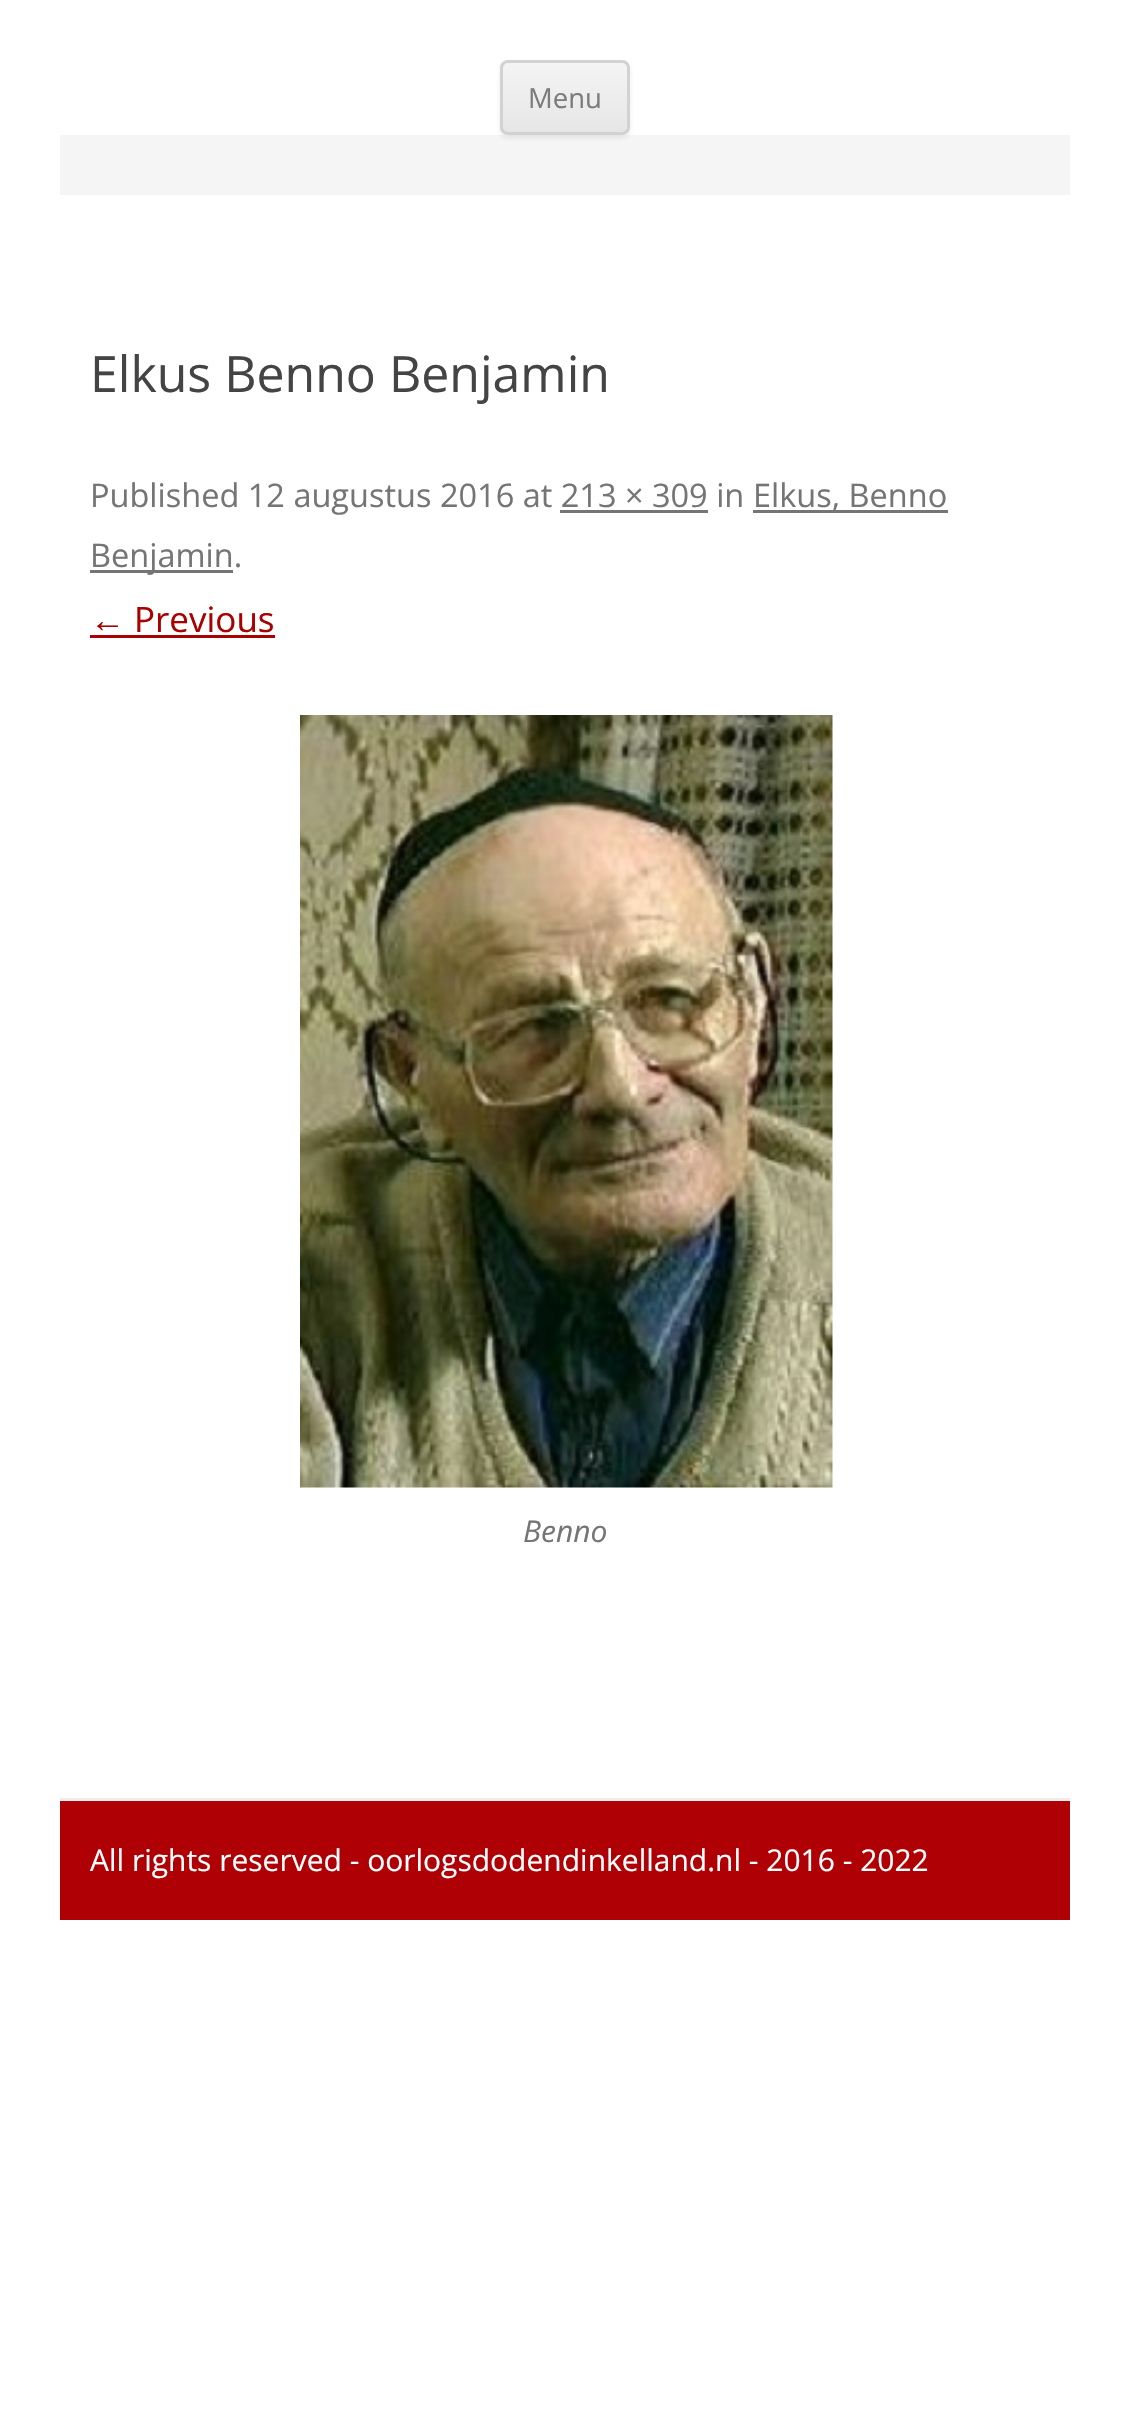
void draw(SkCanvas* canvas) {
	SkPaint paint;
	paint.setAntiAlias(true);
	auto svgPath = [&](const char* data, bool evenOdd = false) {
		SkPath result = *SkParsePath::FromSVGString(data);
		if (evenOdd) result.setFillType(SkPathFillType::kEvenOdd);
		return result;
	};
	canvas->clear(0xffffffff);
	paint.setColor(0xfff5f5f5);
	canvas->drawRect(SkRect::MakeXYWH(60, 135, 1010, 60), paint);
	paint.setColor(0x1a404040);
	paint.setMaskFilter(SkMaskFilter::MakeBlur(kNormal_SkBlurStyle, 2.5));
	canvas->drawRoundRect(SkRect::MakeXYWH(500, 63, 130, 75), 8, 8, paint);
	paint.setMaskFilter(nullptr);
	canvas->save();
	canvas->clipPath(svgPath("M508 60H622C626.5 60 630 63.5 630 68V127C630 131.5 626.5 135 622 135H508C503.5 135 500 131.5 500 127V68C500 63.5 503.5 60 508 60Z"), true);
	{
		const SkColor colors[] = {0xfff4f4f4, 0xffe6e6e6};
		const float stops[] = {0, 1};
		const SkPoint ends[] = {{565, 62}, {565, 133}};
		paint.setShader(SkGradientShader::MakeLinear(ends, colors, stops, 2, SkTileMode::kClamp));
		paint.setAlpha(255);
	}
	canvas->drawRect(SkRect::MakeXYWH(500, 63, 130, 70), paint);
	canvas->restore();
	paint.setStroke(true);
	paint.setStrokeWidth(3);
	paint.setShader(nullptr);
	paint.setColor(0xffd2d2d2);
	canvas->drawRoundRect(SkRect::MakeXYWH(501.5, 61.5, 127, 72), 6.5, 6.5, paint);
	SkFont f1(fontMgr->matchFamilyStyle("Open Sans", SkFontStyle::Normal()), 27.5);
	f1.setSubpixel(true);
	paint.setStroke(false);
	paint.setColor(0xff7c7c7c);
	canvas->drawString("Menu", 528, 108, f1, paint);
	SkFont f2(fontMgr->matchFamilyStyle("Open Sans", SkFontStyle::Normal()), 50);
	f2.setSubpixel(true);
	paint.setColor(0xff444444);
	canvas->drawString("Elkus Benno Benjamin", 90, 392, f2, paint);
	SkFont f3(fontMgr->matchFamilyStyle("Open Sans", SkFontStyle::Normal()), 32.5);
	f3.setSubpixel(true);
	paint.setColor(0xff757575);
	canvas->drawString("Published 12 augustus 2016 at 213 × 309 in", 90, 507, f3, paint);
	canvas->drawRect(SkRect::MakeXYWH(753, 510, 195, 3), paint);
	canvas->drawString("Elkus, Benno", 753, 507, f3, paint);
	canvas->drawRect(SkRect::MakeXYWH(560, 510, 148, 3), paint);
	canvas->drawRect(SkRect::MakeXYWH(90, 570, 143, 3), paint);
	canvas->drawString("Benjamin.", 90, 567, f3, paint);
	SkFont f4(fontMgr->matchFamilyStyle("Liberation Sans", SkFontStyle::Normal()), 35);
	f4.setSubpixel(true);
	paint.setColor(0xffaa0000);
	canvas->drawString("←", 90, 632, f4, paint);
	canvas->drawRect(SkRect::MakeXYWH(90, 635, 185, 3), paint);
	SkFont f5(fontMgr->matchFamilyStyle("Open Sans", SkFontStyle::Normal()), 35);
	f5.setSubpixel(true);
	canvas->drawString("Previous", 134, 632, f5, paint);
	canvas->drawImageRect(SkImages::DeferredFromEncodedData(SkData::MakeFromFileName("img1.png")), SkRect::MakeXYWH(300, 715, 533, 773), SkSamplingOptions());
	SkFont f6(fontMgr->matchFamilyStyle("Open Sans", SkFontStyle::Italic()), 30);
	f6.setSubpixel(true);
	paint.setColor(0xff757575);
	canvas->drawString("Benno", 523, 1542, f6, paint);
	paint.setColor(0xffaf0105);
	canvas->drawRect(SkRect::MakeXYWH(60, 1801, 1010, 119), paint);
	paint.setColor(0xffededed);
	canvas->drawRect(SkRect::MakeXYWH(60, 1798, 1010, 3), paint);
	SkFont f7(fontMgr->matchFamilyStyle("Open Sans", SkFontStyle::Normal()), 30);
	f7.setSubpixel(true);
	paint.setColor(0xffffffff);
	canvas->drawString("All rights reserved - oorlogsdodendinkelland.nl - 2016 - 2022", 90, 1871, f7, paint);
}
